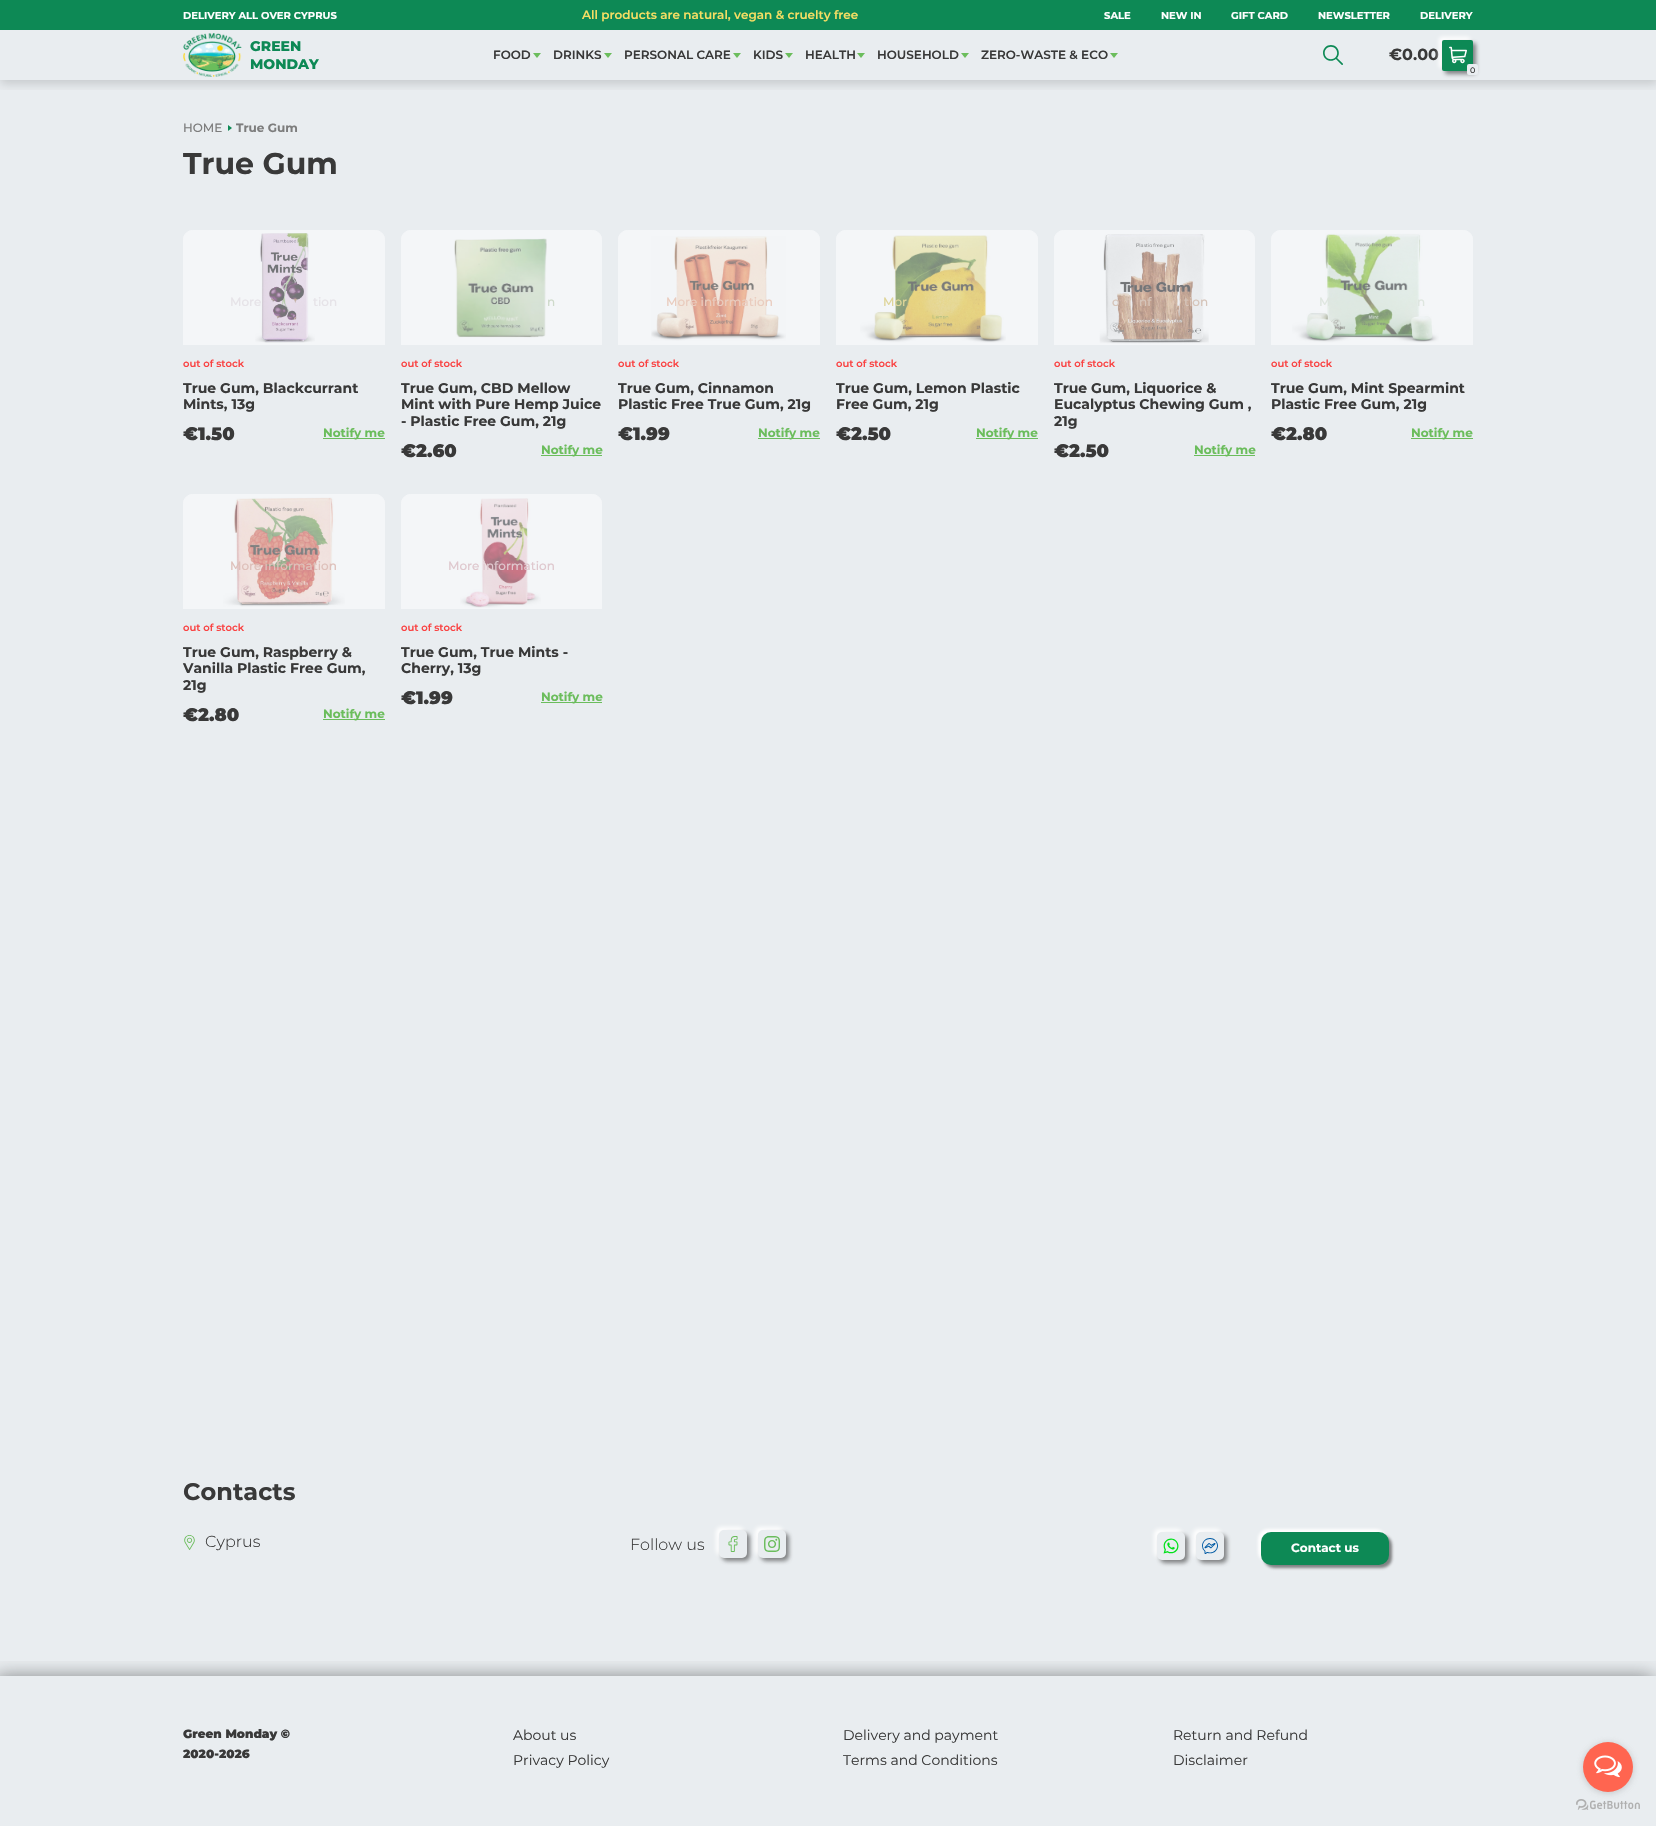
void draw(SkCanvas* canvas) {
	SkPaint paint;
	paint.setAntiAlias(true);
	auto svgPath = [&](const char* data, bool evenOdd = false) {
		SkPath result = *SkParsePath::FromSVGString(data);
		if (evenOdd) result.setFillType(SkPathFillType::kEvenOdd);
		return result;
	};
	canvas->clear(0xffe9edf0);
	canvas->save();
	canvas->clipRect(SkRect::MakeXYWH(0, 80, 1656, 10));
	paint.setColor(0x26000000);
	paint.setMaskFilter(SkMaskFilter::MakeBlur(kNormal_SkBlurStyle, 5));
	canvas->drawRect(SkRect::MakeXYWH(0, 2, 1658, 82), paint);
	paint.setMaskFilter(nullptr);
	canvas->restore();
	paint.setColor(0xff0d8955);
	canvas->drawRect(SkRect::MakeXYWH(0, 0, 1656, 30), paint);
	SkFont f1(fontMgr->matchFamilyStyle("Montserrat", SkFontStyle::Bold()), 10);
	f1.setSubpixel(true);
	paint.setColor(0xffffffff);
	canvas->drawString("DELIVERY ALL OVER CYPRUS", 183, 19, f1, paint);
	SkFont f2(fontMgr->matchFamilyStyle("Montserrat", SkFontStyle(600, SkFontStyle::kNormal_Width, SkFontStyle::kUpright_Slant)), 12);
	f2.setSubpixel(true);
	paint.setColor(0xfff5de63);
	canvas->drawString("All products are natural, vegan & cruelty free", 582, 19, f2, paint);
	paint.setColor(0xffffffff);
	canvas->drawString("SALE", 1104, 19, f1, paint);
	canvas->drawString("NEW IN", 1161, 19, f1, paint);
	canvas->drawString("GIFT CARD", 1231, 19, f1, paint);
	canvas->drawString("NEWSLETTER", 1318, 19, f1, paint);
	canvas->drawString("DELIVERY", 1420, 19, f1, paint);
	canvas->drawImageRect(SkImages::DeferredFromEncodedData(SkData::MakeFromFileName("img1.png")), SkRect::MakeXYWH(183, 33, 59, 44), SkSamplingOptions());
	SkFont f3(fontMgr->matchFamilyStyle("Montserrat", SkFontStyle(800, SkFontStyle::kNormal_Width, SkFontStyle::kUpright_Slant)), 14);
	f3.setSubpixel(true);
	paint.setColor(0xff0d8955);
	canvas->drawString("GREEN", 250, 51, f3, paint);
	canvas->drawString("MONDAY", 250, 69, f3, paint);
	paint.setColor(0xff393939);
	canvas->drawString("FOOD", 493, 59, f2, paint);
	paint.setColor(0xff6bbd5c);
	canvas->drawPath(svgPath("M533 53H541L537 58Z"), paint);
	paint.setColor(0xff393939);
	canvas->drawString("DRINKS", 553, 59, f2, paint);
	paint.setColor(0xff6bbd5c);
	canvas->drawPath(svgPath("M604 53H612L608 58Z"), paint);
	paint.setColor(0xff393939);
	canvas->drawString("PERSONAL CARE", 624, 59, f2, paint);
	paint.setColor(0xff6bbd5c);
	canvas->drawPath(svgPath("M733 53H741L737 58Z"), paint);
	paint.setColor(0xff393939);
	canvas->drawString("KIDS", 753, 59, f2, paint);
	paint.setColor(0xff6bbd5c);
	canvas->drawPath(svgPath("M785 53H793L789 58Z"), paint);
	paint.setColor(0xff393939);
	canvas->drawString("HEALTH", 805, 59, f2, paint);
	paint.setColor(0xff6bbd5c);
	canvas->drawPath(svgPath("M857 53H865L861 58Z"), paint);
	paint.setColor(0xff393939);
	canvas->drawString("HOUSEHOLD", 877, 59, f2, paint);
	paint.setColor(0xff6bbd5c);
	canvas->drawPath(svgPath("M961 53H969L965 58Z"), paint);
	paint.setColor(0xff393939);
	canvas->drawString("ZERO-WASTE & ECO", 981, 59, f2, paint);
	paint.setColor(0xff6bbd5c);
	canvas->drawPath(svgPath("M1110 53H1118L1114 58Z"), paint);
	canvas->drawImageRect(SkImages::DeferredFromEncodedData(SkData::MakeFromFileName("img2.png")), SkRect::MakeXYWH(1323, 45, 20, 20), SkSamplingOptions());
	SkFont f4(fontMgr->matchFamilyStyle("Montserrat", SkFontStyle::Bold()), 16);
	f4.setSubpixel(true);
	paint.setColor(0xff393939);
	canvas->drawString("€0.00", 1389, 60, f4, paint);
	paint.setColor(0xffffffff);
	paint.setMaskFilter(SkMaskFilter::MakeBlur(kNormal_SkBlurStyle, 2));
	canvas->drawRoundRect(SkRect::MakeXYWH(1439, 37, 31, 31), 2, 2, paint);
	paint.setMaskFilter(nullptr);
	paint.setColor(0x99393939);
	paint.setMaskFilter(SkMaskFilter::MakeBlur(kNormal_SkBlurStyle, 2));
	canvas->drawRoundRect(SkRect::MakeXYWH(1445, 43, 31, 31), 2, 2, paint);
	paint.setMaskFilter(nullptr);
	paint.setColor(0xff0d8955);
	canvas->drawRoundRect(SkRect::MakeXYWH(1442, 40, 31, 31), 2, 2, paint);
	canvas->drawImageRect(SkImages::DeferredFromEncodedData(SkData::MakeFromFileName("img3.png")), SkRect::MakeXYWH(1449, 46, 18, 18), SkSamplingOptions());
	paint.setColor(0xffe9edf0);
	canvas->drawRoundRect(SkRect::MakeXYWH(1467, 64, 11, 11), 2, 2, paint);
	SkFont f5(fontMgr->matchFamilyStyle("Montserrat", SkFontStyle(500, SkFontStyle::kNormal_Width, SkFontStyle::kUpright_Slant)), 8);
	f5.setSubpixel(true);
	paint.setColor(0xff393939);
	canvas->drawString("0", 1470, 73, f5, paint);
	SkFont f6(fontMgr->matchFamilyStyle("Montserrat", SkFontStyle(500, SkFontStyle::kNormal_Width, SkFontStyle::kUpright_Slant)), 12);
	f6.setSubpixel(true);
	paint.setColor(0xff7d7d7d);
	canvas->drawString("HOME", 183, 132, f6, paint);
	paint.setColor(0xff0d8955);
	canvas->drawPath(svgPath("M228 131V125L232 128Z"), paint);
	SkFont f7(fontMgr->matchFamilyStyle("Montserrat", SkFontStyle::Bold()), 12);
	f7.setSubpixel(true);
	paint.setColor(0xff7d7d7d);
	canvas->drawString("True Gum", 236, 132, f7, paint);
	SkFont f8(fontMgr->matchFamilyStyle("Montserrat", SkFontStyle::Bold()), 30);
	f8.setSubpixel(true);
	paint.setColor(0xff393939);
	canvas->drawString("True Gum", 183, 174, f8, paint);
	paint.setColor(0xffffffff);
	canvas->drawPath(svgPath("M193 230H375C380.5 230 385 234.5 385 240V345H183V240C183 234.5 187.5 230 193 230Z"), paint);
	canvas->drawImageRect(SkImages::DeferredFromEncodedData(SkData::MakeFromFileName("img4.png")), SkRect::MakeXYWH(255, 233, 60, 110), SkSamplingOptions());
	paint.setColor(0x7de9edf0);
	canvas->drawPath(svgPath("M193 230H375C380.5 230 385 234.5 385 240V345H183V240C183 234.5 187.5 230 193 230Z"), paint);
	paint.setColor(0xffe6e3e8);
	canvas->drawString("More", 230, 306, f6, paint);
	canvas->drawString("tion", 313, 306, f6, paint);
	SkFont f9(fontMgr->matchFamilyStyle("Montserrat", SkFontStyle(600, SkFontStyle::kNormal_Width, SkFontStyle::kUpright_Slant)), 10);
	f9.setSubpixel(true);
	paint.setColor(0xfffa4242);
	canvas->drawString("out of stock", 183, 367, f9, paint);
	SkFont f10(fontMgr->matchFamilyStyle("Montserrat", SkFontStyle::Bold()), 14);
	f10.setSubpixel(true);
	paint.setColor(0xff393939);
	canvas->drawString("True Gum, Blackcurrant", 183, 393, f10, paint);
	canvas->drawString("Mints, 13g", 183, 409, f10, paint);
	SkFont f11(fontMgr->matchFamilyStyle("Montserrat", SkFontStyle(900, SkFontStyle::kNormal_Width, SkFontStyle::kUpright_Slant)), 18);
	f11.setSubpixel(true);
	canvas->drawString("€1.50", 183, 440, f11, paint);
	paint.setColor(0xff6bbd5c);
	canvas->drawRect(SkRect::MakeXYWH(323, 438, 62, 1), paint);
	canvas->drawString("Notify me", 323, 437, f7, paint);
	paint.setColor(0xffffffff);
	canvas->drawPath(svgPath("M411 230H592C597.5 230 602 234.5 602 240V345H401V240C401 234.5 405.5 230 411 230Z"), paint);
	canvas->drawImageRect(SkImages::DeferredFromEncodedData(SkData::MakeFromFileName("img5.png")), SkRect::MakeXYWH(454, 238, 93, 100), SkSamplingOptions());
	paint.setColor(0x7de9edf0);
	canvas->drawPath(svgPath("M411 230H592C597.5 230 602 234.5 602 240V345H401V240C401 234.5 405.5 230 411 230Z"), paint);
	paint.setColor(0xffcedaca);
	canvas->drawString("n", 547, 306, f6, paint);
	paint.setColor(0xfffa4242);
	canvas->drawString("out of stock", 401, 367, f9, paint);
	paint.setColor(0xff393939);
	canvas->drawString("True Gum, CBD Mellow", 401, 393, f10, paint);
	canvas->drawString("Mint with Pure Hemp Juice", 401, 409, f10, paint);
	canvas->drawString("- Plastic Free Gum, 21g", 401, 426, f10, paint);
	canvas->drawString("€2.60", 401, 457, f11, paint);
	paint.setColor(0xff6bbd5c);
	canvas->drawRect(SkRect::MakeXYWH(541, 455, 61, 1), paint);
	canvas->drawString("Notify me", 541, 454, f7, paint);
	paint.setColor(0xffffffff);
	canvas->drawPath(svgPath("M628 230H810C815.5 230 820 234.5 820 240V345H618V240C618 234.5 622.5 230 628 230Z"), paint);
	canvas->drawImageRect(SkImages::DeferredFromEncodedData(SkData::MakeFromFileName("img6.png")), SkRect::MakeXYWH(651, 236, 135, 105), SkSamplingOptions());
	paint.setColor(0x7de9edf0);
	canvas->drawPath(svgPath("M628 230H810C815.5 230 820 234.5 820 240V345H618V240C618 234.5 622.5 230 628 230Z"), paint);
	paint.setColor(0xffeaccbe);
	canvas->drawString("More information", 666, 306, f6, paint);
	paint.setColor(0xfffa4242);
	canvas->drawString("out of stock", 618, 367, f9, paint);
	paint.setColor(0xff393939);
	canvas->drawString("True Gum, Cinnamon", 618, 393, f10, paint);
	canvas->drawString("Plastic Free True Gum, 21g", 618, 409, f10, paint);
	canvas->drawString("€1.99", 618, 440, f11, paint);
	paint.setColor(0xff6bbd5c);
	canvas->drawRect(SkRect::MakeXYWH(758, 438, 62, 1), paint);
	canvas->drawString("Notify me", 758, 437, f7, paint);
	paint.setColor(0xffffffff);
	canvas->drawPath(svgPath("M846 230H1028C1033.5 230 1038 234.5 1038 240V345H836V240C836 234.5 840.5 230 846 230Z"), paint);
	canvas->drawImageRect(SkImages::DeferredFromEncodedData(SkData::MakeFromFileName("img7.png")), SkRect::MakeXYWH(860, 235, 146, 108), SkSamplingOptions());
	paint.setColor(0x7de9edf0);
	canvas->drawPath(svgPath("M846 230H1028C1033.5 230 1038 234.5 1038 240V345H836V240C836 234.5 840.5 230 846 230Z"), paint);
	paint.setColor(0xffdfd599);
	canvas->drawString("Mor", 883, 306, f6, paint);
	paint.setColor(0xfffa4242);
	canvas->drawString("out of stock", 836, 367, f9, paint);
	paint.setColor(0xff393939);
	canvas->drawString("True Gum, Lemon Plastic", 836, 393, f10, paint);
	canvas->drawString("Free Gum, 21g", 836, 409, f10, paint);
	canvas->drawString("€2.50", 836, 440, f11, paint);
	paint.setColor(0xff6bbd5c);
	canvas->drawRect(SkRect::MakeXYWH(976, 438, 62, 1), paint);
	canvas->drawString("Notify me", 976, 437, f7, paint);
	paint.setColor(0xffffffff);
	canvas->drawPath(svgPath("M1064 230H1245C1250.5 230 1255 234.5 1255 240V345H1054V240C1054 234.5 1058.5 230 1064 230Z"), paint);
	canvas->drawImageRect(SkImages::DeferredFromEncodedData(SkData::MakeFromFileName("img8.png")), SkRect::MakeXYWH(1099, 234, 110, 110), SkSamplingOptions());
	paint.setColor(0x7de9edf0);
	canvas->drawPath(svgPath("M1064 230H1245C1250.5 230 1255 234.5 1255 240V345H1054V240C1054 234.5 1058.5 230 1064 230Z"), paint);
	paint.setColor(0xffd6c5ba);
	canvas->drawString("o", 1112, 306, f6, paint);
	canvas->drawString("nf", 1139, 306, f6, paint);
	canvas->drawString("tion", 1184, 306, f6, paint);
	paint.setColor(0xfffa4242);
	canvas->drawString("out of stock", 1054, 367, f9, paint);
	paint.setColor(0xff393939);
	canvas->drawString("True Gum, Liquorice &", 1054, 393, f10, paint);
	canvas->drawString("Eucalyptus Chewing Gum ,", 1054, 409, f10, paint);
	canvas->drawString("21g", 1054, 426, f10, paint);
	canvas->drawString("€2.50", 1054, 457, f11, paint);
	paint.setColor(0xff6bbd5c);
	canvas->drawRect(SkRect::MakeXYWH(1194, 455, 61, 1), paint);
	canvas->drawString("Notify me", 1194, 454, f7, paint);
	paint.setColor(0xffffffff);
	canvas->drawPath(svgPath("M1281 230H1463C1468.5 230 1473 234.5 1473 240V345H1271V240C1271 234.5 1275.5 230 1281 230Z"), paint);
	canvas->drawImageRect(SkImages::DeferredFromEncodedData(SkData::MakeFromFileName("img9.png")), SkRect::MakeXYWH(1292, 233, 147, 110), SkSamplingOptions());
	paint.setColor(0x7de9edf0);
	canvas->drawPath(svgPath("M1281 230H1463C1468.5 230 1473 234.5 1473 240V345H1271V240C1271 234.5 1275.5 230 1281 230Z"), paint);
	paint.setColor(0xffdee6df);
	canvas->drawString("M", 1319, 306, f6, paint);
	canvas->drawString("n", 1417, 306, f6, paint);
	paint.setColor(0xfffa4242);
	canvas->drawString("out of stock", 1271, 367, f9, paint);
	paint.setColor(0xff393939);
	canvas->drawString("True Gum, Mint Spearmint", 1271, 393, f10, paint);
	canvas->drawString("Plastic Free Gum, 21g", 1271, 409, f10, paint);
	canvas->drawString("€2.80", 1271, 440, f11, paint);
	paint.setColor(0xff6bbd5c);
	canvas->drawRect(SkRect::MakeXYWH(1411, 438, 62, 1), paint);
	canvas->drawString("Notify me", 1411, 437, f7, paint);
	paint.setColor(0xffffffff);
	canvas->drawPath(svgPath("M193 494H375C380.5 494 385 498.5 385 504V609H183V504C183 498.5 187.5 494 193 494Z"), paint);
	canvas->drawImageRect(SkImages::DeferredFromEncodedData(SkData::MakeFromFileName("img10.png")), SkRect::MakeXYWH(223, 497, 122, 110), SkSamplingOptions());
	paint.setColor(0x7de9edf0);
	canvas->drawPath(svgPath("M193 494H375C380.5 494 385 498.5 385 504V609H183V504C183 498.5 187.5 494 193 494Z"), paint);
	paint.setColor(0xffdec0ba);
	canvas->drawString("More information", 230, 570, f6, paint);
	paint.setColor(0xfffa4242);
	canvas->drawString("out of stock", 183, 631, f9, paint);
	paint.setColor(0xff393939);
	canvas->drawString("True Gum, Raspberry &", 183, 657, f10, paint);
	canvas->drawString("Vanilla Plastic Free Gum,", 183, 673, f10, paint);
	canvas->drawString("21g", 183, 690, f10, paint);
	canvas->drawString("€2.80", 183, 721, f11, paint);
	paint.setColor(0xff6bbd5c);
	canvas->drawRect(SkRect::MakeXYWH(323, 719, 62, 1), paint);
	canvas->drawString("Notify me", 323, 718, f7, paint);
	paint.setColor(0xffffffff);
	canvas->drawPath(svgPath("M411 494H592C597.5 494 602 498.5 602 504V609H401V504C401 498.5 405.5 494 411 494Z"), paint);
	canvas->drawImageRect(SkImages::DeferredFromEncodedData(SkData::MakeFromFileName("img11.png")), SkRect::MakeXYWH(460, 498, 81, 110), SkSamplingOptions());
	paint.setColor(0x7de9edf0);
	canvas->drawPath(svgPath("M411 494H592C597.5 494 602 498.5 602 504V609H401V504C401 498.5 405.5 494 411 494Z"), paint);
	paint.setColor(0xffdfc8ce);
	canvas->drawString("More information", 448, 570, f6, paint);
	paint.setColor(0xfffa4242);
	canvas->drawString("out of stock", 401, 631, f9, paint);
	paint.setColor(0xff393939);
	canvas->drawString("True Gum, True Mints -", 401, 657, f10, paint);
	canvas->drawString("Cherry, 13g", 401, 673, f10, paint);
	canvas->drawString("€1.99", 401, 704, f11, paint);
	paint.setColor(0xff6bbd5c);
	canvas->drawRect(SkRect::MakeXYWH(541, 702, 61, 1), paint);
	canvas->drawString("Notify me", 541, 701, f7, paint);
	SkFont f12(fontMgr->matchFamilyStyle("Montserrat", SkFontStyle::Bold()), 24);
	f12.setSubpixel(true);
	paint.setColor(0xff393939);
	canvas->drawString("Contacts", 183, 1500, f12, paint);
	canvas->drawImageRect(SkImages::DeferredFromEncodedData(SkData::MakeFromFileName("img12.png")), SkRect::MakeXYWH(184, 1535, 11, 15), SkSamplingOptions());
	SkFont f13(fontMgr->matchFamilyStyle("Montserrat", SkFontStyle(300, SkFontStyle::kNormal_Width, SkFontStyle::kUpright_Slant)), 16);
	f13.setSubpixel(true);
	canvas->drawString("Cyprus", 205, 1547, f13, paint);
	canvas->drawString("Follow us", 630, 1550, f13, paint);
	paint.setColor(0xffffffff);
	paint.setMaskFilter(SkMaskFilter::MakeBlur(kNormal_SkBlurStyle, 2));
	canvas->drawRoundRect(SkRect::MakeXYWH(716, 1527, 28, 28), 5, 5, paint);
	paint.setMaskFilter(nullptr);
	paint.setColor(0x99393939);
	paint.setMaskFilter(SkMaskFilter::MakeBlur(kNormal_SkBlurStyle, 2));
	canvas->drawRoundRect(SkRect::MakeXYWH(722, 1533, 28, 28), 5, 5, paint);
	paint.setMaskFilter(nullptr);
	paint.setColor(0xffe9edf0);
	canvas->drawRoundRect(SkRect::MakeXYWH(719, 1530, 28, 28), 5, 5, paint);
	canvas->drawImageRect(SkImages::DeferredFromEncodedData(SkData::MakeFromFileName("img13.png")), SkRect::MakeXYWH(728, 1536, 10, 16), SkSamplingOptions());
	paint.setColor(0xffffffff);
	paint.setMaskFilter(SkMaskFilter::MakeBlur(kNormal_SkBlurStyle, 2));
	canvas->drawRoundRect(SkRect::MakeXYWH(755, 1527, 28, 28), 5, 5, paint);
	paint.setMaskFilter(nullptr);
	paint.setColor(0x99393939);
	paint.setMaskFilter(SkMaskFilter::MakeBlur(kNormal_SkBlurStyle, 2));
	canvas->drawRoundRect(SkRect::MakeXYWH(761, 1533, 28, 28), 5, 5, paint);
	paint.setMaskFilter(nullptr);
	paint.setColor(0xffe9edf0);
	canvas->drawRoundRect(SkRect::MakeXYWH(758, 1530, 28, 28), 5, 5, paint);
	canvas->drawImageRect(SkImages::DeferredFromEncodedData(SkData::MakeFromFileName("img14.png")), SkRect::MakeXYWH(764, 1536, 16, 16), SkSamplingOptions());
	paint.setColor(0xffffffff);
	paint.setMaskFilter(SkMaskFilter::MakeBlur(kNormal_SkBlurStyle, 2));
	canvas->drawRoundRect(SkRect::MakeXYWH(1154, 1529, 28, 28), 5, 5, paint);
	paint.setMaskFilter(nullptr);
	paint.setColor(0x99393939);
	paint.setMaskFilter(SkMaskFilter::MakeBlur(kNormal_SkBlurStyle, 2));
	canvas->drawRoundRect(SkRect::MakeXYWH(1160, 1535, 28, 28), 5, 5, paint);
	paint.setMaskFilter(nullptr);
	paint.setColor(0xffe9edf0);
	canvas->drawRoundRect(SkRect::MakeXYWH(1157, 1532, 28, 28), 5, 5, paint);
	canvas->drawImageRect(SkImages::DeferredFromEncodedData(SkData::MakeFromFileName("img15.png")), SkRect::MakeXYWH(1163, 1538, 16, 16), SkSamplingOptions());
	paint.setColor(0xffffffff);
	paint.setMaskFilter(SkMaskFilter::MakeBlur(kNormal_SkBlurStyle, 2));
	canvas->drawRoundRect(SkRect::MakeXYWH(1193, 1529, 28, 28), 5, 5, paint);
	paint.setMaskFilter(nullptr);
	paint.setColor(0x99393939);
	paint.setMaskFilter(SkMaskFilter::MakeBlur(kNormal_SkBlurStyle, 2));
	canvas->drawRoundRect(SkRect::MakeXYWH(1199, 1535, 28, 28), 5, 5, paint);
	paint.setMaskFilter(nullptr);
	paint.setColor(0xffe9edf0);
	canvas->drawRoundRect(SkRect::MakeXYWH(1196, 1532, 28, 28), 5, 5, paint);
	canvas->drawImageRect(SkImages::DeferredFromEncodedData(SkData::MakeFromFileName("img16.png")), SkRect::MakeXYWH(1202, 1538, 16, 16), SkSamplingOptions());
	paint.setColor(0xffffffff);
	paint.setMaskFilter(SkMaskFilter::MakeBlur(kNormal_SkBlurStyle, 1.5));
	canvas->drawRoundRect(SkRect::MakeXYWH(1258, 1529, 128, 33), 10, 10, paint);
	paint.setMaskFilter(nullptr);
	paint.setColor(0x99393939);
	paint.setMaskFilter(SkMaskFilter::MakeBlur(kNormal_SkBlurStyle, 1.5));
	canvas->drawRoundRect(SkRect::MakeXYWH(1264, 1535, 128, 33), 10, 10, paint);
	paint.setMaskFilter(nullptr);
	paint.setColor(0xff0d8955);
	canvas->drawRoundRect(SkRect::MakeXYWH(1261, 1532, 128, 33), 10, 10, paint);
	paint.setColor(0xffffffff);
	canvas->drawString("Contact us", 1291, 1552, f7, paint);
	canvas->save();
	canvas->clipRect(SkRect::MakeXYWH(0, 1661, 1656, 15));
	paint.setColor(0x6e000000);
	paint.setMaskFilter(SkMaskFilter::MakeBlur(kNormal_SkBlurStyle, 9));
	canvas->drawRect(SkRect::MakeXYWH(-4, 1676, 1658, 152), paint);
	paint.setMaskFilter(nullptr);
	canvas->restore();
	SkFont f14(fontMgr->matchFamilyStyle("Montserrat", SkFontStyle(900, SkFontStyle::kNormal_Width, SkFontStyle::kUpright_Slant)), 12);
	f14.setSubpixel(true);
	paint.setColor(0xff393939);
	canvas->drawString("Green Monday ©", 183, 1738, f14, paint);
	canvas->drawString("2020-2026", 183, 1758, f14, paint);
	SkFont f15(fontMgr->matchFamilyStyle("Montserrat", SkFontStyle::Normal()), 14);
	f15.setSubpixel(true);
	canvas->drawString("About us", 513, 1740, f15, paint);
	canvas->drawString("Privacy Policy", 513, 1765, f15, paint);
	canvas->drawString("Delivery and payment", 843, 1740, f15, paint);
	canvas->drawString("Terms and Conditions", 843, 1765, f15, paint);
	canvas->drawString("Return and Refund", 1173, 1740, f15, paint);
	canvas->drawString("Disclaimer", 1173, 1765, f15, paint);
	canvas->drawImageRect(SkImages::DeferredFromEncodedData(SkData::MakeFromFileName("img18.png")), SkRect::MakeXYWH(1576, 1799, 64, 11), SkSamplingOptions());
	paint.setColor(0x66888888);
	paint.setMaskFilter(SkMaskFilter::MakeBlur(kNormal_SkBlurStyle, 3.5));
	canvas->drawRoundRect(SkRect::MakeXYWH(1583, 1743, 50, 50), 25, 25, paint);
	paint.setMaskFilter(nullptr);
	paint.setColor(0xffff6550);
	canvas->drawCircle(1608, 1767, 25, paint);
	canvas->drawImageRect(SkImages::DeferredFromEncodedData(SkData::MakeFromFileName("img17.png")), SkRect::MakeXYWH(1594, 1755, 28, 23), SkSamplingOptions());
}
